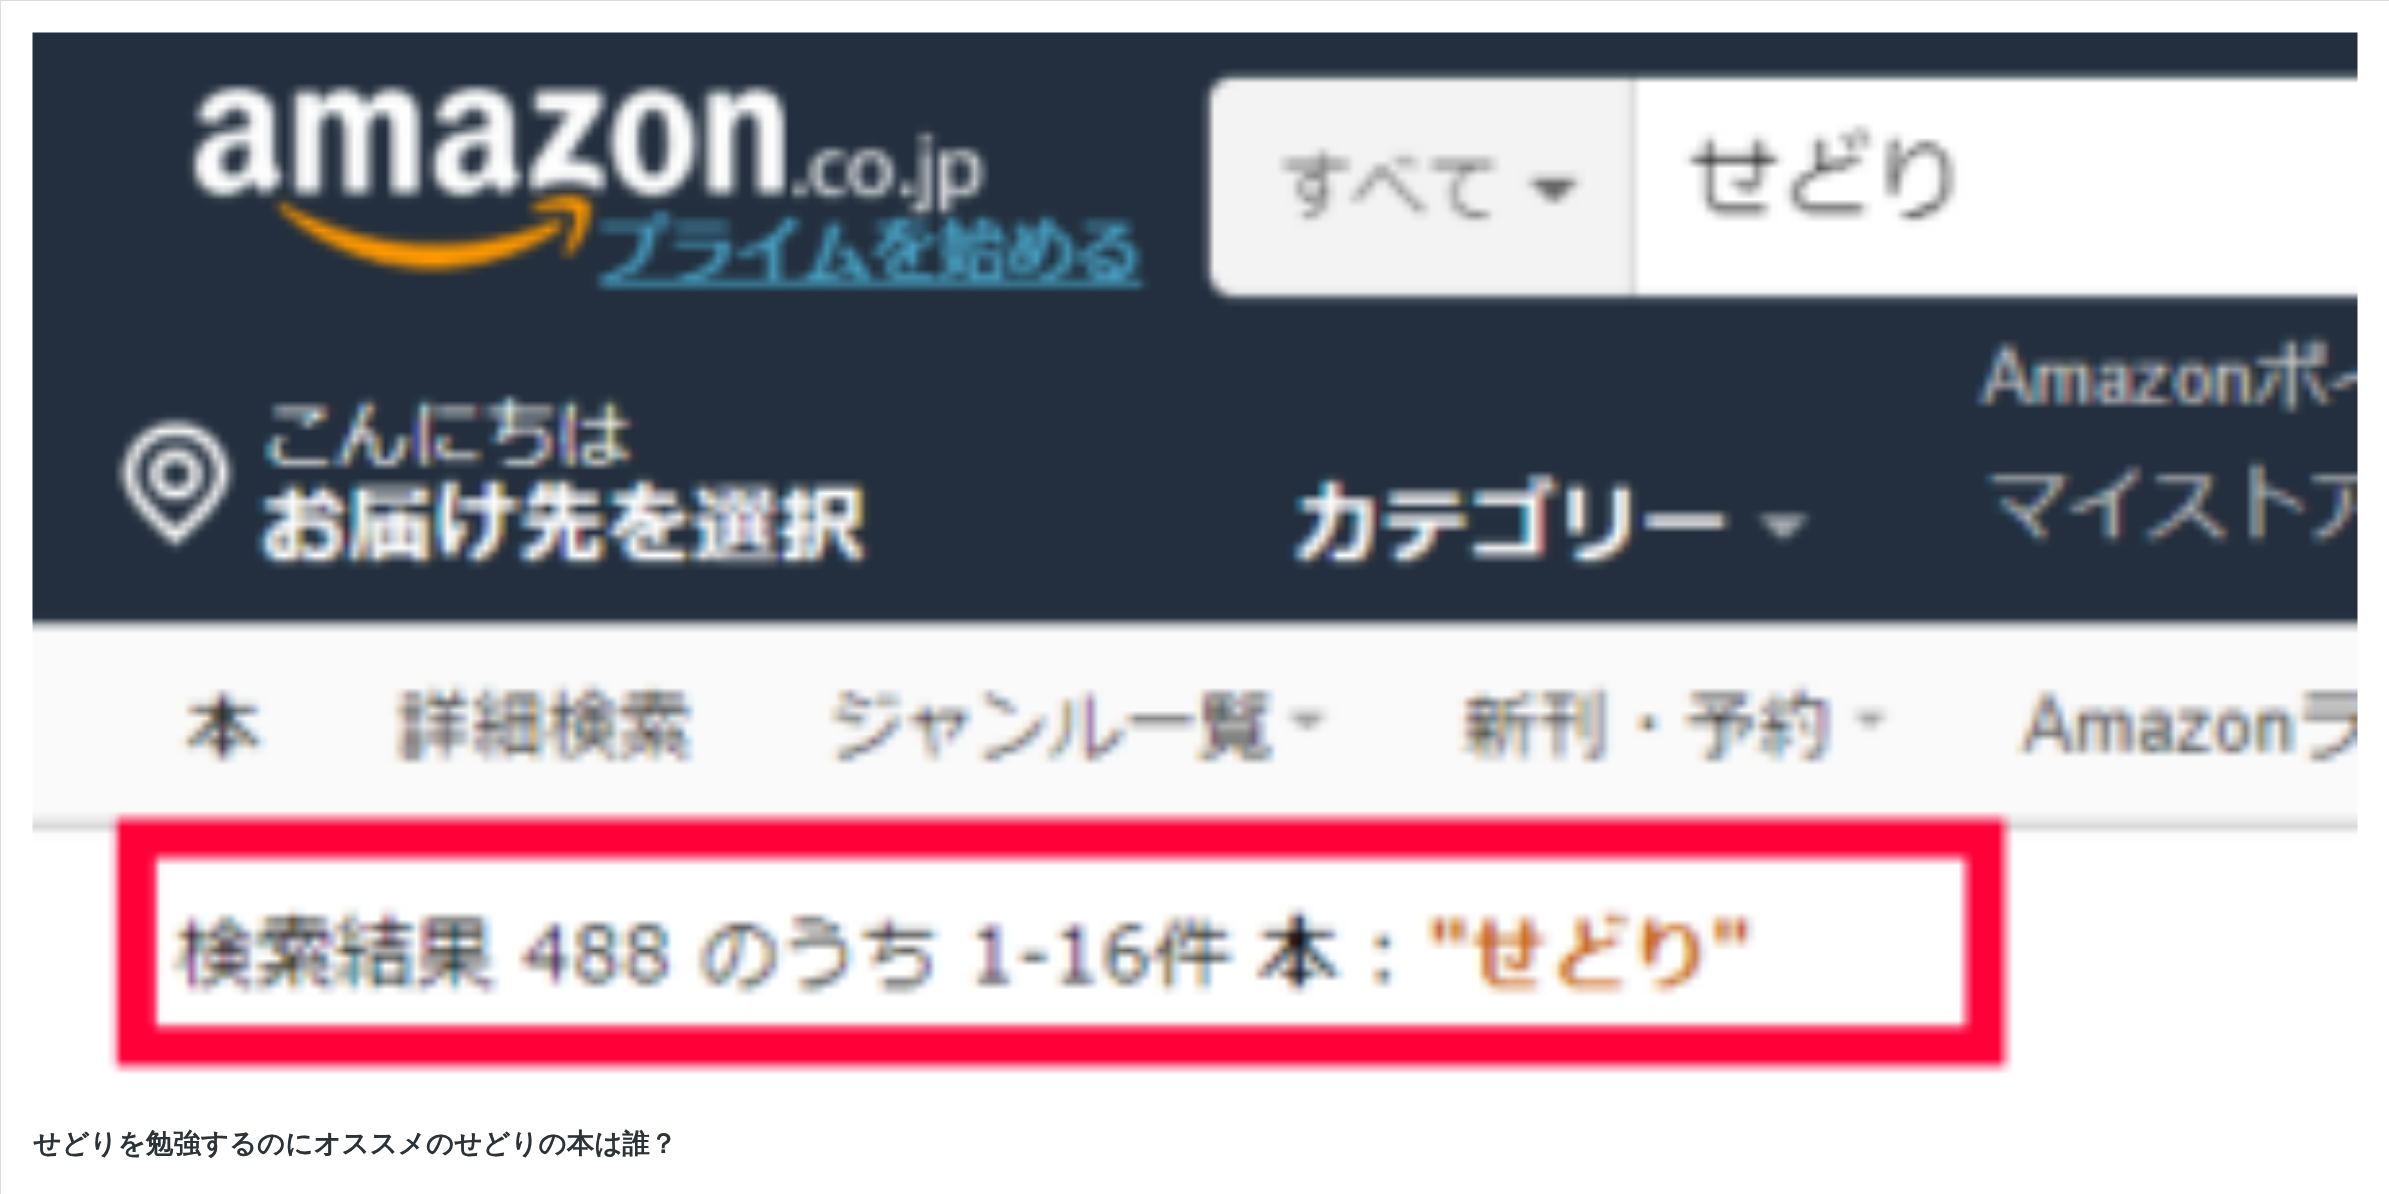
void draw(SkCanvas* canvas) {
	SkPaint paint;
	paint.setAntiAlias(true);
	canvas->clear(0xffffffff);
	paint.setStroke(true);
	paint.setStrokeWidth(1);
	paint.setColor(0xffdcdcde);
	canvas->drawRect(SkRect::MakeXYWH(0.5, 0.5, 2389, 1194), paint);
	canvas->drawImageRect(SkImages::DeferredFromEncodedData(SkData::MakeFromFileName("img1.png")), SkRect::MakeXYWH(32, 32, 2326, 1042), SkSamplingOptions());
	SkFont f1(fontMgr->matchFamilyStyle("WenQuanYi Zen Hei", SkFontStyle::Bold()), 27.5);
	f1.setSubpixel(true);
	paint.setStroke(false);
	paint.setColor(0xff2c3338);
	canvas->drawString("せどりを勉強するのにオススメのせどりの本は誰？", 33, 1153, f1, paint);
}
